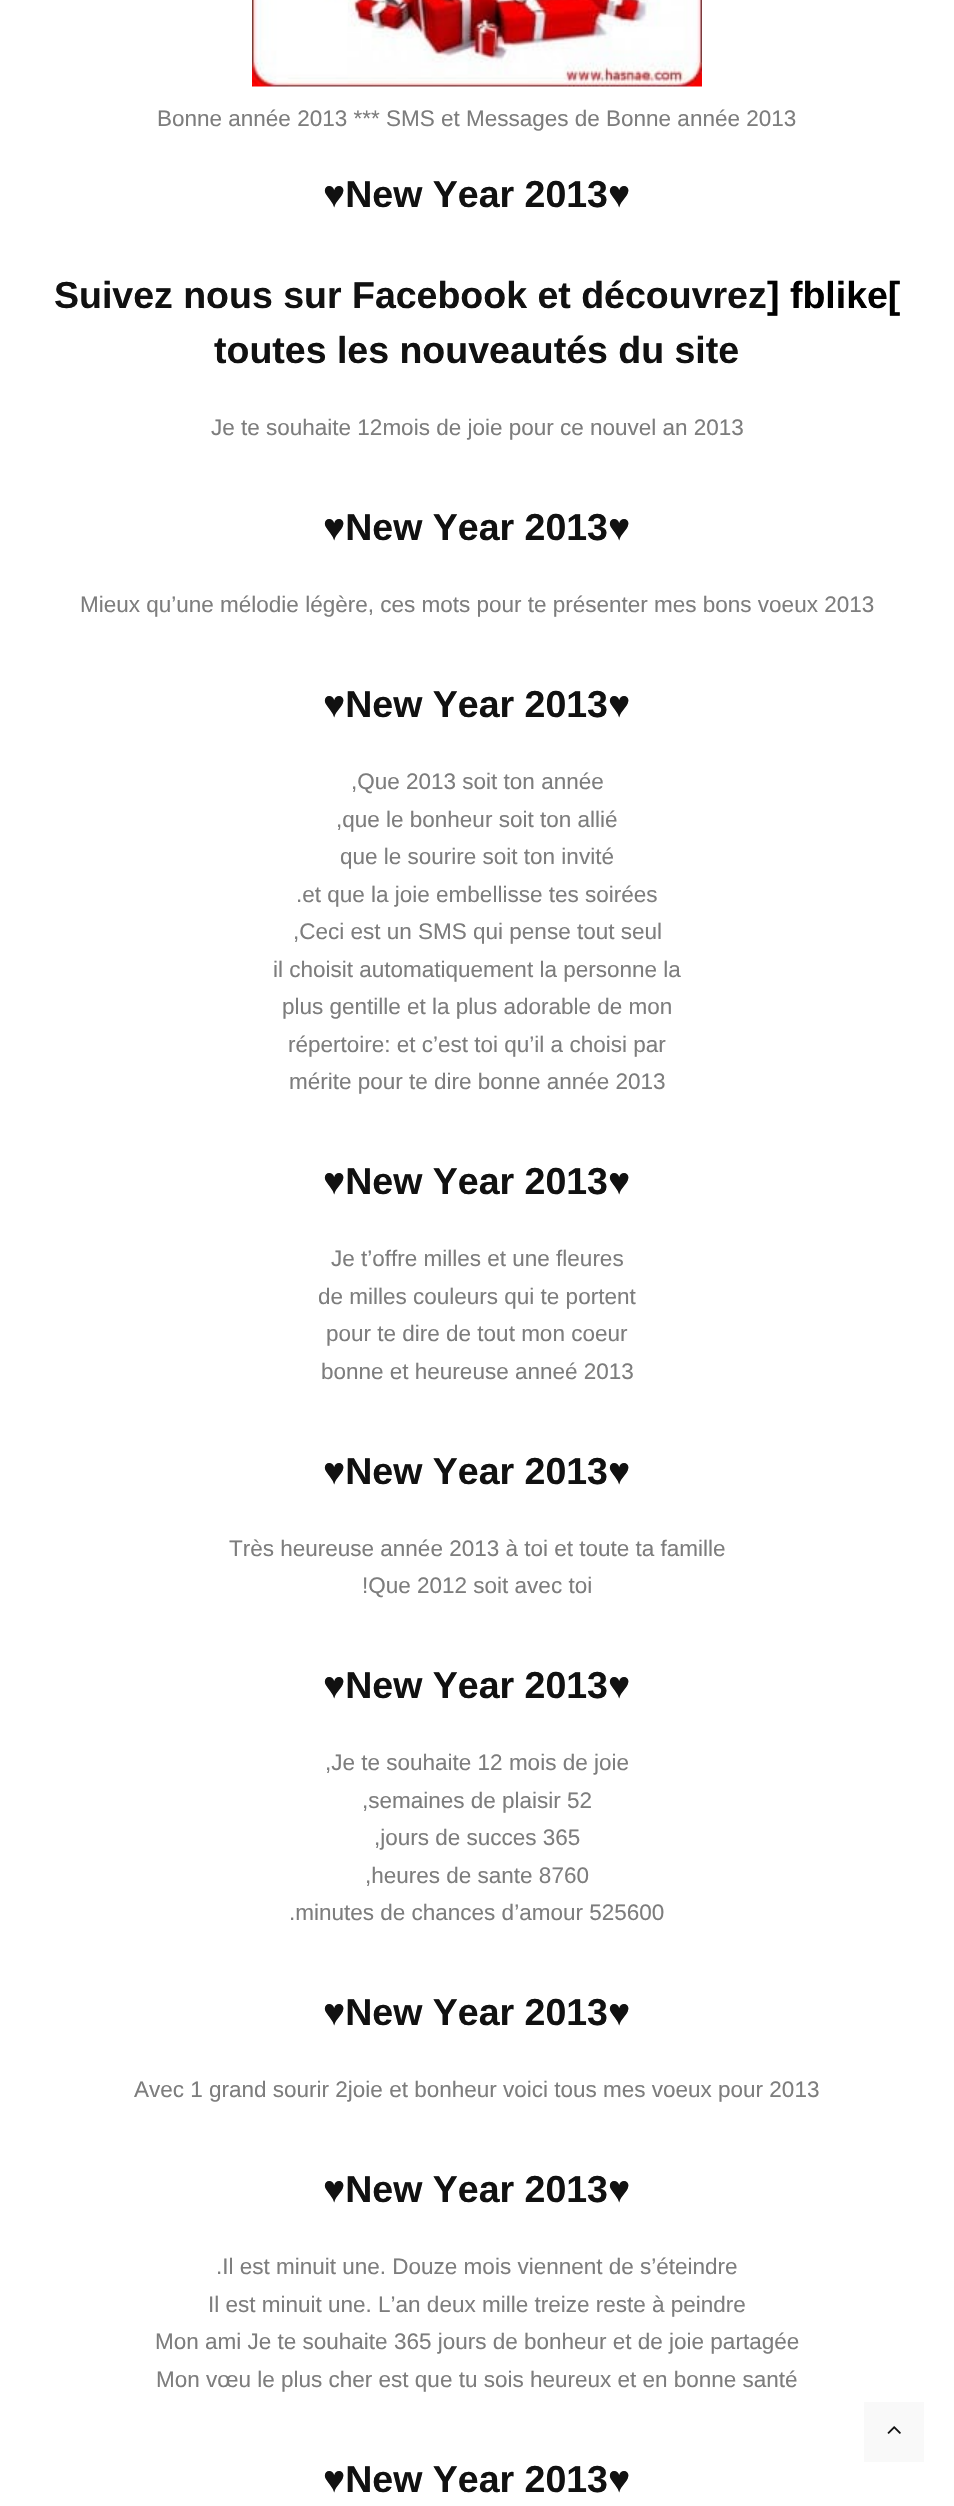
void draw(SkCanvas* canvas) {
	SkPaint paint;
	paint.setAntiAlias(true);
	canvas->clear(0xffffffff);
	canvas->drawImageRect(SkImages::DeferredFromEncodedData(SkData::MakeFromFileName("img1.png")), SkRect::MakeXYWH(252, 0, 450, 87), SkSamplingOptions());
	SkFont f1(fontMgr->matchFamilyStyle("Liberation Sans", SkFontStyle::Normal()), 22.5);
	f1.setSubpixel(true);
	paint.setColor(0xff7d7d7d);
	canvas->drawString("Bonne année 2013 *** SMS et Messages de Bonne année 2013", 157, 126, f1, paint);
	SkFont f2(fontMgr->matchFamilyStyle("Liberation Sans", SkFontStyle::Bold()), 37.5);
	f2.setSubpixel(true);
	paint.setColor(0xff111111);
	canvas->drawString("♥New Year 2013♥", 323, 207, f2, paint);
	canvas->drawString("Suivez nous sur Facebook et découvrez", 54, 308, f2, paint);
	paint.setColor(0xff000000);
	canvas->drawString("] fblike[", 767, 308, f2, paint);
	paint.setColor(0xff111111);
	canvas->drawString("toutes les nouveautés du site", 214, 363, f2, paint);
	paint.setColor(0xff7d7d7d);
	canvas->drawString("Je te souhaite 12mois de joie pour ce nouvel an 2013", 211, 435, f1, paint);
	paint.setColor(0xff111111);
	canvas->drawString("♥New Year 2013♥", 323, 540, f2, paint);
	paint.setColor(0xff7d7d7d);
	canvas->drawString("Mieux qu’une mélodie légère, ces mots pour te présenter mes bons voeux 2013", 80, 612, f1, paint);
	paint.setColor(0xff111111);
	canvas->drawString("♥New Year 2013♥", 323, 717, f2, paint);
	paint.setColor(0xff7d7d7d);
	canvas->drawString(",Que 2013 soit ton année", 351, 789, f1, paint);
	canvas->drawString(",que le bonheur soit ton allié", 336, 827, f1, paint);
	canvas->drawString("que le sourire soit ton invité", 340, 864, f1, paint);
	canvas->drawString(".et que la joie embellisse tes soirées", 296, 902, f1, paint);
	canvas->drawString(",Ceci est un SMS qui pense tout seul", 293, 939, f1, paint);
	canvas->drawString("il choisit automatiquement la personne la", 273, 977, f1, paint);
	canvas->drawString("plus gentille et la plus adorable de mon", 282, 1014, f1, paint);
	canvas->drawString("répertoire: et c’est toi qu’il a choisi par", 288, 1052, f1, paint);
	canvas->drawString("mérite pour te dire bonne année 2013", 289, 1089, f1, paint);
	paint.setColor(0xff111111);
	canvas->drawString("♥New Year 2013♥", 323, 1194, f2, paint);
	paint.setColor(0xff7d7d7d);
	canvas->drawString("Je t’offre milles et une fleures", 331, 1266, f1, paint);
	canvas->drawString("de milles couleurs qui te portent", 318, 1304, f1, paint);
	canvas->drawString("pour te dire de tout mon coeur", 326, 1341, f1, paint);
	canvas->drawString("bonne et heureuse anneé 2013", 321, 1379, f1, paint);
	paint.setColor(0xff111111);
	canvas->drawString("♥New Year 2013♥", 323, 1484, f2, paint);
	paint.setColor(0xff7d7d7d);
	canvas->drawString("Très heureuse année 2013 à toi et toute ta famille", 229, 1556, f1, paint);
	canvas->drawString("!Que 2012 soit avec toi", 362, 1593, f1, paint);
	paint.setColor(0xff111111);
	canvas->drawString("♥New Year 2013♥", 323, 1698, f2, paint);
	paint.setColor(0xff7d7d7d);
	canvas->drawString(",Je te souhaite 12 mois de joie", 325, 1770, f1, paint);
	canvas->drawString(",semaines de plaisir 52", 362, 1808, f1, paint);
	canvas->drawString(",jours de succes 365", 374, 1845, f1, paint);
	canvas->drawString(",heures de sante 8760", 365, 1883, f1, paint);
	canvas->drawString(".minutes de chances d’amour 525600", 289, 1920, f1, paint);
	paint.setColor(0xff111111);
	canvas->drawString("♥New Year 2013♥", 323, 2025, f2, paint);
	paint.setColor(0xff7d7d7d);
	canvas->drawString("Avec 1 grand sourir 2joie et bonheur voici tous mes voeux pour 2013", 134, 2097, f1, paint);
	paint.setColor(0xff111111);
	canvas->drawString("♥New Year 2013♥", 323, 2202, f2, paint);
	paint.setColor(0xff7d7d7d);
	canvas->drawString(".Il est minuit une. Douze mois viennent de s’éteindre", 216, 2274, f1, paint);
	canvas->drawString("Il est minuit une. L’an deux mille treize reste à peindre", 208, 2312, f1, paint);
	canvas->drawString("Mon ami Je te souhaite 365 jours de bonheur et de joie partagée", 155, 2349, f1, paint);
	canvas->drawString("Mon vœu le plus cher est que tu sois heureux et en bonne santé", 156, 2387, f1, paint);
	paint.setColor(0xff111111);
	canvas->drawString("♥New Year 2013♥", 323, 2492, f2, paint);
	paint.setColor(0xfff9f9f9);
	canvas->drawRect(SkRect::MakeXYWH(864, 2402, 60, 60), paint);
	canvas->drawImageRect(SkImages::DeferredFromEncodedData(SkData::MakeFromFileName("img2.png")), SkRect::MakeXYWH(887, 2426, 14, 8), SkSamplingOptions());
}
